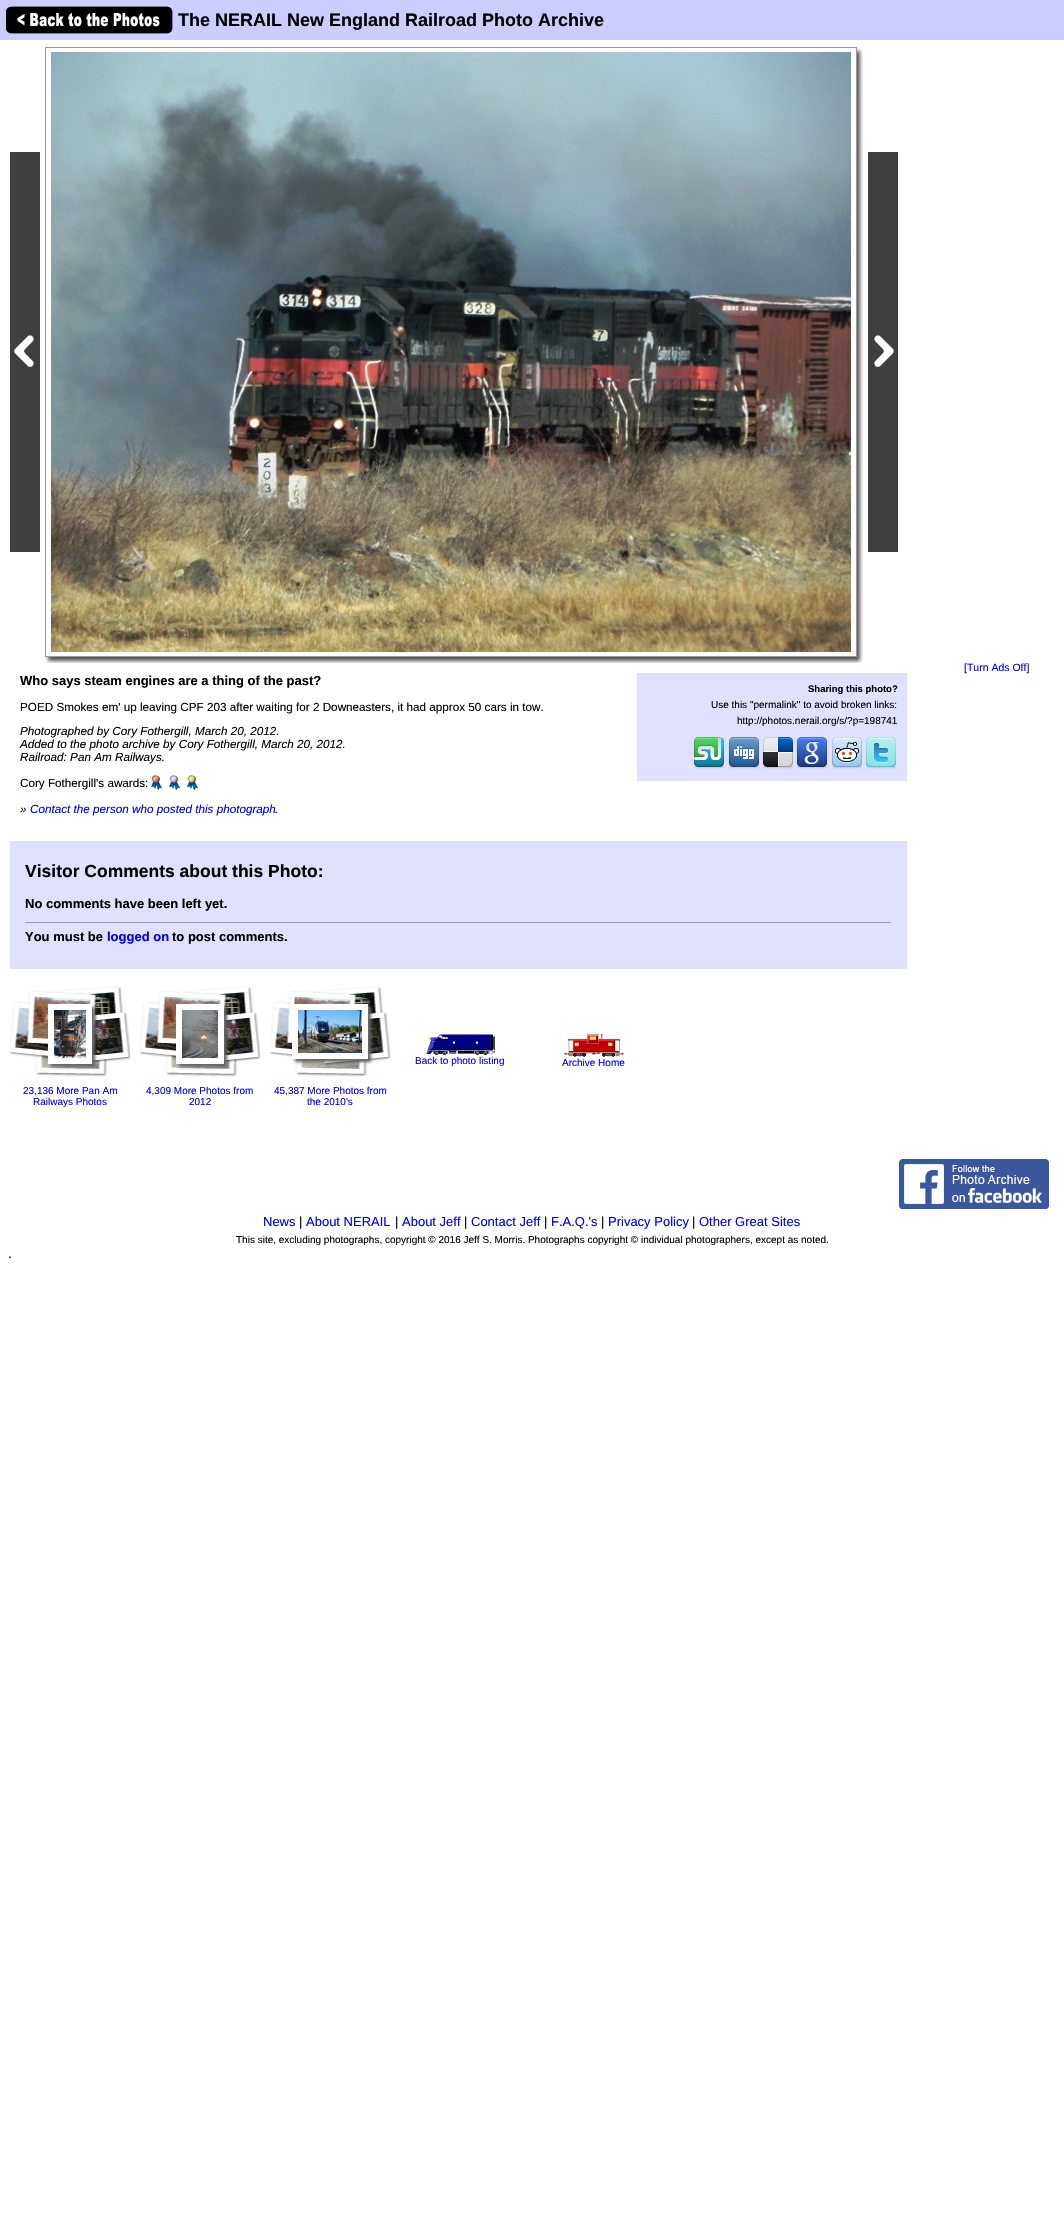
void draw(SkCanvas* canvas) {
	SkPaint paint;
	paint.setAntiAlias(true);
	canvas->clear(0xffffffff);
	paint.setColor(0xffccccff);
	canvas->drawRect(SkRect::MakeXYWH(0, 0, 1064, 40), paint);
	canvas->drawImageRect(SkImages::DeferredFromEncodedData(SkData::MakeFromFileName("img1.png")), SkRect::MakeXYWH(6, 6, 167, 28), SkSamplingOptions());
	SkFont f1(fontMgr->matchFamilyStyle("Liberation Sans", SkFontStyle::Bold()), 18);
	f1.setSubpixel(true);
	paint.setColor(0xff000000);
	canvas->drawString("The NERAIL New England Railroad Photo Archive", 178, 26, f1, paint);
	SkFont f2(fontMgr->matchFamilyStyle("Liberation Sans", SkFontStyle::Normal()), 10.5);
	f2.setSubpixel(true);
	paint.setColor(0xff0000ff);
	canvas->drawString("[Turn Ads Off]", 964, 671, f2, paint);
	canvas->drawImageRect(SkImages::DeferredFromEncodedData(SkData::MakeFromFileName("img2.png")), SkRect::MakeXYWH(10, 152, 30, 400), SkSamplingOptions());
	paint.setStroke(true);
	paint.setStrokeWidth(1);
	paint.setColor(0xff9a9a9a);
	canvas->drawRect(SkRect::MakeXYWH(45.5, 47.5, 811, 609), paint);
	canvas->drawImageRect(SkImages::DeferredFromEncodedData(SkData::MakeFromFileName("img3.png")), SkRect::MakeXYWH(51, 52, 800, 600), SkSamplingOptions());
	canvas->drawImageRect(SkImages::DeferredFromEncodedData(SkData::MakeFromFileName("img4.png")), SkRect::MakeXYWH(857, 47, 6, 610), SkSamplingOptions());
	canvas->drawImageRect(SkImages::DeferredFromEncodedData(SkData::MakeFromFileName("img5.png")), SkRect::MakeXYWH(868, 152, 30, 400), SkSamplingOptions());
	canvas->drawImageRect(SkImages::DeferredFromEncodedData(SkData::MakeFromFileName("img6.png")), SkRect::MakeXYWH(45, 657, 812, 6), SkSamplingOptions());
	canvas->drawImageRect(SkImages::DeferredFromEncodedData(SkData::MakeFromFileName("img7.png")), SkRect::MakeXYWH(857, 657, 6, 6), SkSamplingOptions());
	SkFont f3(fontMgr->matchFamilyStyle("Liberation Sans", SkFontStyle::Bold()), 13);
	f3.setSubpixel(true);
	paint.setStroke(false);
	paint.setColor(0xff000000);
	canvas->drawString("Who says steam engines are a thing of the past?", 20, 685, f3, paint);
	SkFont f4(fontMgr->matchFamilyStyle("Liberation Sans", SkFontStyle::Normal()), 11.7);
	f4.setSubpixel(true);
	canvas->drawString("POED Smokes em' up leaving CPF 203 after waiting for 2 Downeasters, it had approx 50 cars in tow.", 20, 711, f4, paint);
	SkFont f5(fontMgr->matchFamilyStyle("Liberation Sans", SkFontStyle::Italic()), 11.7);
	f5.setSubpixel(true);
	canvas->drawString("Photographed by Cory Fothergill, March 20, 2012.", 20, 735, f5, paint);
	canvas->drawString("Added to the photo archive by Cory Fothergill, March 20, 2012.", 20, 748, f5, paint);
	canvas->drawString("Railroad: Pan Am Railways.", 20, 761, f5, paint);
	canvas->drawString("Cory Fothergill's awards:", 20, 787, f4, paint);
	canvas->drawImageRect(SkImages::DeferredFromEncodedData(SkData::MakeFromFileName("img8.png")), SkRect::MakeXYWH(151, 775, 11, 15), SkSamplingOptions());
	canvas->drawImageRect(SkImages::DeferredFromEncodedData(SkData::MakeFromFileName("img9.png")), SkRect::MakeXYWH(169, 775, 11, 15), SkSamplingOptions());
	canvas->drawImageRect(SkImages::DeferredFromEncodedData(SkData::MakeFromFileName("img10.png")), SkRect::MakeXYWH(187, 775, 11, 15), SkSamplingOptions());
	canvas->drawString("»", 20, 813, f5, paint);
	paint.setColor(0xff0000ff);
	canvas->drawString("Contact the person who posted this photograph", 30, 813, f5, paint);
	paint.setColor(0xff000000);
	canvas->drawString(".", 275, 813, f5, paint);
	paint.setColor(0xffe0e0ff);
	canvas->drawRect(SkRect::MakeXYWH(637, 673, 270, 108), paint);
	SkFont f6(fontMgr->matchFamilyStyle("Liberation Sans", SkFontStyle::Bold()), 9.5);
	f6.setSubpixel(true);
	paint.setColor(0xff000000);
	canvas->drawString("Sharing this photo?", 808, 692, f6, paint);
	SkFont f7(fontMgr->matchFamilyStyle("Liberation Sans", SkFontStyle::Normal()), 10);
	f7.setSubpixel(true);
	canvas->drawString("Use this \"permalink\" to avoid broken links:", 711, 708, f7, paint);
	canvas->drawString("http://photos.nerail.org/s/?p=198741", 737, 724, f7, paint);
	canvas->drawImageRect(SkImages::DeferredFromEncodedData(SkData::MakeFromFileName("img11.png")), SkRect::MakeXYWH(694, 737, 30, 32), SkSamplingOptions());
	canvas->drawImageRect(SkImages::DeferredFromEncodedData(SkData::MakeFromFileName("img12.png")), SkRect::MakeXYWH(729, 737, 30, 32), SkSamplingOptions());
	canvas->drawImageRect(SkImages::DeferredFromEncodedData(SkData::MakeFromFileName("img13.png")), SkRect::MakeXYWH(762, 737, 32, 32), SkSamplingOptions());
	canvas->drawImageRect(SkImages::DeferredFromEncodedData(SkData::MakeFromFileName("img14.png")), SkRect::MakeXYWH(797, 737, 30, 32), SkSamplingOptions());
	canvas->drawImageRect(SkImages::DeferredFromEncodedData(SkData::MakeFromFileName("img15.png")), SkRect::MakeXYWH(832, 737, 30, 32), SkSamplingOptions());
	canvas->drawImageRect(SkImages::DeferredFromEncodedData(SkData::MakeFromFileName("img16.png")), SkRect::MakeXYWH(866, 737, 30, 32), SkSamplingOptions());
	paint.setColor(0xffe0e0ff);
	canvas->drawRect(SkRect::MakeXYWH(10, 841, 897, 128), paint);
	SkFont f8(fontMgr->matchFamilyStyle("Liberation Sans", SkFontStyle::Bold()), 17.5);
	f8.setSubpixel(true);
	paint.setColor(0xff000000);
	canvas->drawString("Visitor Comments about this Photo:", 25, 877, f8, paint);
	canvas->drawString("No comments have been left yet.", 25, 908, f3, paint);
	paint.setColor(0xff9f9f9f);
	canvas->drawRect(SkRect::MakeXYWH(25, 922, 867, 1), paint);
	paint.setColor(0xffeeeeee);
	canvas->drawRect(SkRect::MakeXYWH(891, 922, 1, 1), paint);
	paint.setColor(0xff000000);
	canvas->drawString("You must be", 25, 941, f3, paint);
	paint.setColor(0xff0000ff);
	canvas->drawString("logged on", 107, 941, f3, paint);
	paint.setColor(0xff000000);
	canvas->drawString("to post comments.", 172, 941, f3, paint);
	canvas->drawImageRect(SkImages::DeferredFromEncodedData(SkData::MakeFromFileName("img17.png")), SkRect::MakeXYWH(426, 1034, 69, 21), SkSamplingOptions());
	paint.setColor(0xff0000ff);
	canvas->drawString("Back to photo listing", 415, 1064, f7, paint);
	canvas->drawImageRect(SkImages::DeferredFromEncodedData(SkData::MakeFromFileName("img18.png")), SkRect::MakeXYWH(564, 1034, 60, 23), SkSamplingOptions());
	canvas->drawString("Archive Home", 562, 1066, f7, paint);
	canvas->drawImageRect(SkImages::DeferredFromEncodedData(SkData::MakeFromFileName("img19.png")), SkRect::MakeXYWH(10, 986, 120, 91), SkSamplingOptions());
	paint.setColor(0xff666666);
	paint.setMaskFilter(SkMaskFilter::MakeBlur(kNormal_SkBlurStyle, 1.5));
	canvas->drawRect(SkRect::MakeXYWH(51, 1007, 44, 60), paint);
	paint.setMaskFilter(nullptr);
	paint.setColor(0xffffffff);
	canvas->drawRect(SkRect::MakeXYWH(48, 1004, 44, 60), paint);
	canvas->drawImageRect(SkImages::DeferredFromEncodedData(SkData::MakeFromFileName("img20.png")), SkRect::MakeXYWH(54, 1010, 32, 48), SkSamplingOptions());
	paint.setColor(0xff0000ff);
	canvas->drawString("23,136 More Pan Am", 23, 1094, f7, paint);
	canvas->drawString("Railways Photos", 33, 1105, f7, paint);
	canvas->drawImageRect(SkImages::DeferredFromEncodedData(SkData::MakeFromFileName("img19.png")), SkRect::MakeXYWH(140, 986, 120, 91), SkSamplingOptions());
	paint.setColor(0xff666666);
	paint.setMaskFilter(SkMaskFilter::MakeBlur(kNormal_SkBlurStyle, 1.5));
	canvas->drawRect(SkRect::MakeXYWH(179, 1007, 48, 60), paint);
	paint.setMaskFilter(nullptr);
	paint.setColor(0xffffffff);
	canvas->drawRect(SkRect::MakeXYWH(176, 1004, 48, 60), paint);
	canvas->drawImageRect(SkImages::DeferredFromEncodedData(SkData::MakeFromFileName("img21.png")), SkRect::MakeXYWH(182, 1010, 36, 48), SkSamplingOptions());
	paint.setColor(0xff0000ff);
	canvas->drawString("4,309 More Photos from", 146, 1094, f7, paint);
	canvas->drawString("2012", 189, 1105, f7, paint);
	canvas->drawImageRect(SkImages::DeferredFromEncodedData(SkData::MakeFromFileName("img19.png")), SkRect::MakeXYWH(270, 986, 120, 91), SkSamplingOptions());
	paint.setColor(0xff666666);
	paint.setMaskFilter(SkMaskFilter::MakeBlur(kNormal_SkBlurStyle, 1.5));
	canvas->drawRect(SkRect::MakeXYWH(295, 1007, 76, 55), paint);
	paint.setMaskFilter(nullptr);
	paint.setColor(0xffffffff);
	canvas->drawRect(SkRect::MakeXYWH(292, 1004, 76, 55), paint);
	canvas->drawImageRect(SkImages::DeferredFromEncodedData(SkData::MakeFromFileName("img22.png")), SkRect::MakeXYWH(298, 1010, 64, 43), SkSamplingOptions());
	paint.setColor(0xff0000ff);
	canvas->drawString("45,387 More Photos from", 274, 1094, f7, paint);
	canvas->drawString("the 2010's", 307, 1105, f7, paint);
	canvas->drawImageRect(SkImages::DeferredFromEncodedData(SkData::MakeFromFileName("img23.png")), SkRect::MakeXYWH(899, 1159, 150, 50), SkSamplingOptions());
	SkFont f9(fontMgr->matchFamilyStyle("Liberation Sans", SkFontStyle::Normal()), 13);
	f9.setSubpixel(true);
	canvas->drawString("News", 263, 1226, f9, paint);
	paint.setColor(0xff000000);
	canvas->drawString("|", 299, 1226, f9, paint);
	paint.setColor(0xff0000ff);
	canvas->drawString("About NERAIL", 306, 1226, f9, paint);
	paint.setColor(0xff000000);
	canvas->drawString("|", 395, 1226, f9, paint);
	paint.setColor(0xff0000ff);
	canvas->drawString("About Jeff", 402, 1226, f9, paint);
	paint.setColor(0xff000000);
	canvas->drawString("|", 464, 1226, f9, paint);
	paint.setColor(0xff0000ff);
	canvas->drawString("Contact Jeff", 471, 1226, f9, paint);
	paint.setColor(0xff000000);
	canvas->drawString("|", 544, 1226, f9, paint);
	paint.setColor(0xff0000ff);
	canvas->drawString("F.A.Q.'s", 551, 1226, f9, paint);
	paint.setColor(0xff000000);
	canvas->drawString("|", 601, 1226, f9, paint);
	paint.setColor(0xff0000ff);
	canvas->drawString("Privacy Policy", 608, 1226, f9, paint);
	paint.setColor(0xff000000);
	canvas->drawString("|", 692, 1226, f9, paint);
	paint.setColor(0xff0000ff);
	canvas->drawString("Other Great Sites", 699, 1226, f9, paint);
	paint.setColor(0xff000000);
	canvas->drawString("This site, excluding photographs, copyright © 2016 Jeff S. Morris. Photographs copyright © individual photographers, except as noted.", 236, 1243, f7, paint);
	SkFont f10(fontMgr->matchFamilyStyle("Liberation Sans", SkFontStyle::Normal()), 14);
	f10.setSubpixel(true);
	canvas->drawString(".", 8, 1258, f10, paint);
}
